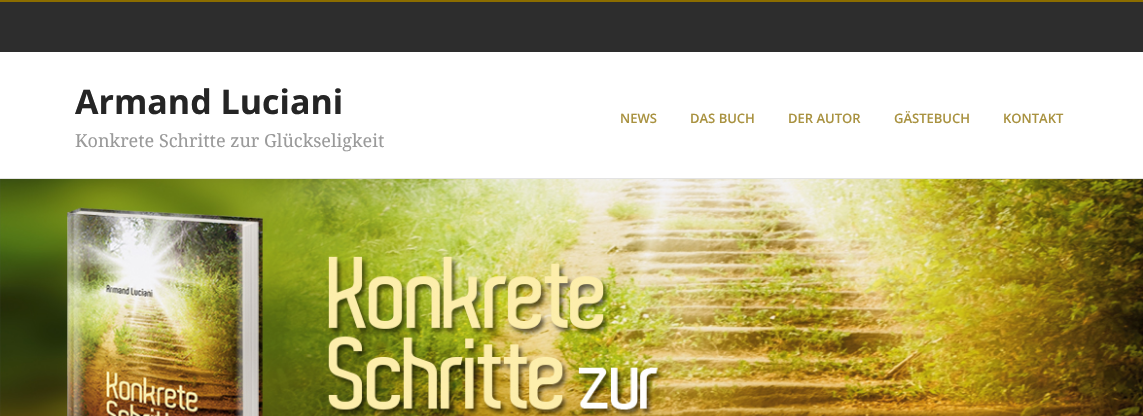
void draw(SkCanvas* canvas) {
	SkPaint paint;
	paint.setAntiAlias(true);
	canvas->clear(0xff2d2d2d);
	paint.setColor(0xff8c6d00);
	canvas->drawRect(SkRect::MakeXYWH(0, 0, 1143, 2), paint);
	paint.setColor(0xffffffff);
	canvas->drawRect(SkRect::MakeXYWH(0, 52, 1143, 126), paint);
	paint.setColor(0xffe3e3e3);
	canvas->drawRect(SkRect::MakeXYWH(0, 178, 1143, 1), paint);
	SkFont f1(fontMgr->matchFamilyStyle("Open Sans", SkFontStyle::Bold()), 34);
	f1.setSubpixel(true);
	paint.setColor(0xff252525);
	canvas->drawString("Armand Luciani", 75, 114, f1, paint);
	SkFont f2(fontMgr->matchFamilyStyle("Droid Serif", SkFontStyle::Normal()), 18);
	f2.setSubpixel(true);
	paint.setColor(0xff9a9a9a);
	canvas->drawString("Konkrete Schritte zur Glückseligkeit", 75, 147, f2, paint);
	SkFont f3(fontMgr->matchFamilyStyle("Open Sans", SkFontStyle(600, SkFontStyle::kNormal_Width, SkFontStyle::kUpright_Slant)), 13);
	f3.setSubpixel(true);
	paint.setColor(0xffa99240);
	canvas->drawString("NEWS", 620, 123, f3, paint);
	canvas->drawString("DAS BUCH", 690, 123, f3, paint);
	canvas->drawString("DER AUTOR", 788, 123, f3, paint);
	canvas->drawString("GÄSTEBUCH", 894, 123, f3, paint);
	canvas->drawString("KONTAKT", 1003, 123, f3, paint);
	canvas->drawImageRect(SkImages::DeferredFromEncodedData(SkData::MakeFromFileName("img1.png")), SkRect::MakeXYWH(0, 179, 1143, 237), SkSamplingOptions());
}
